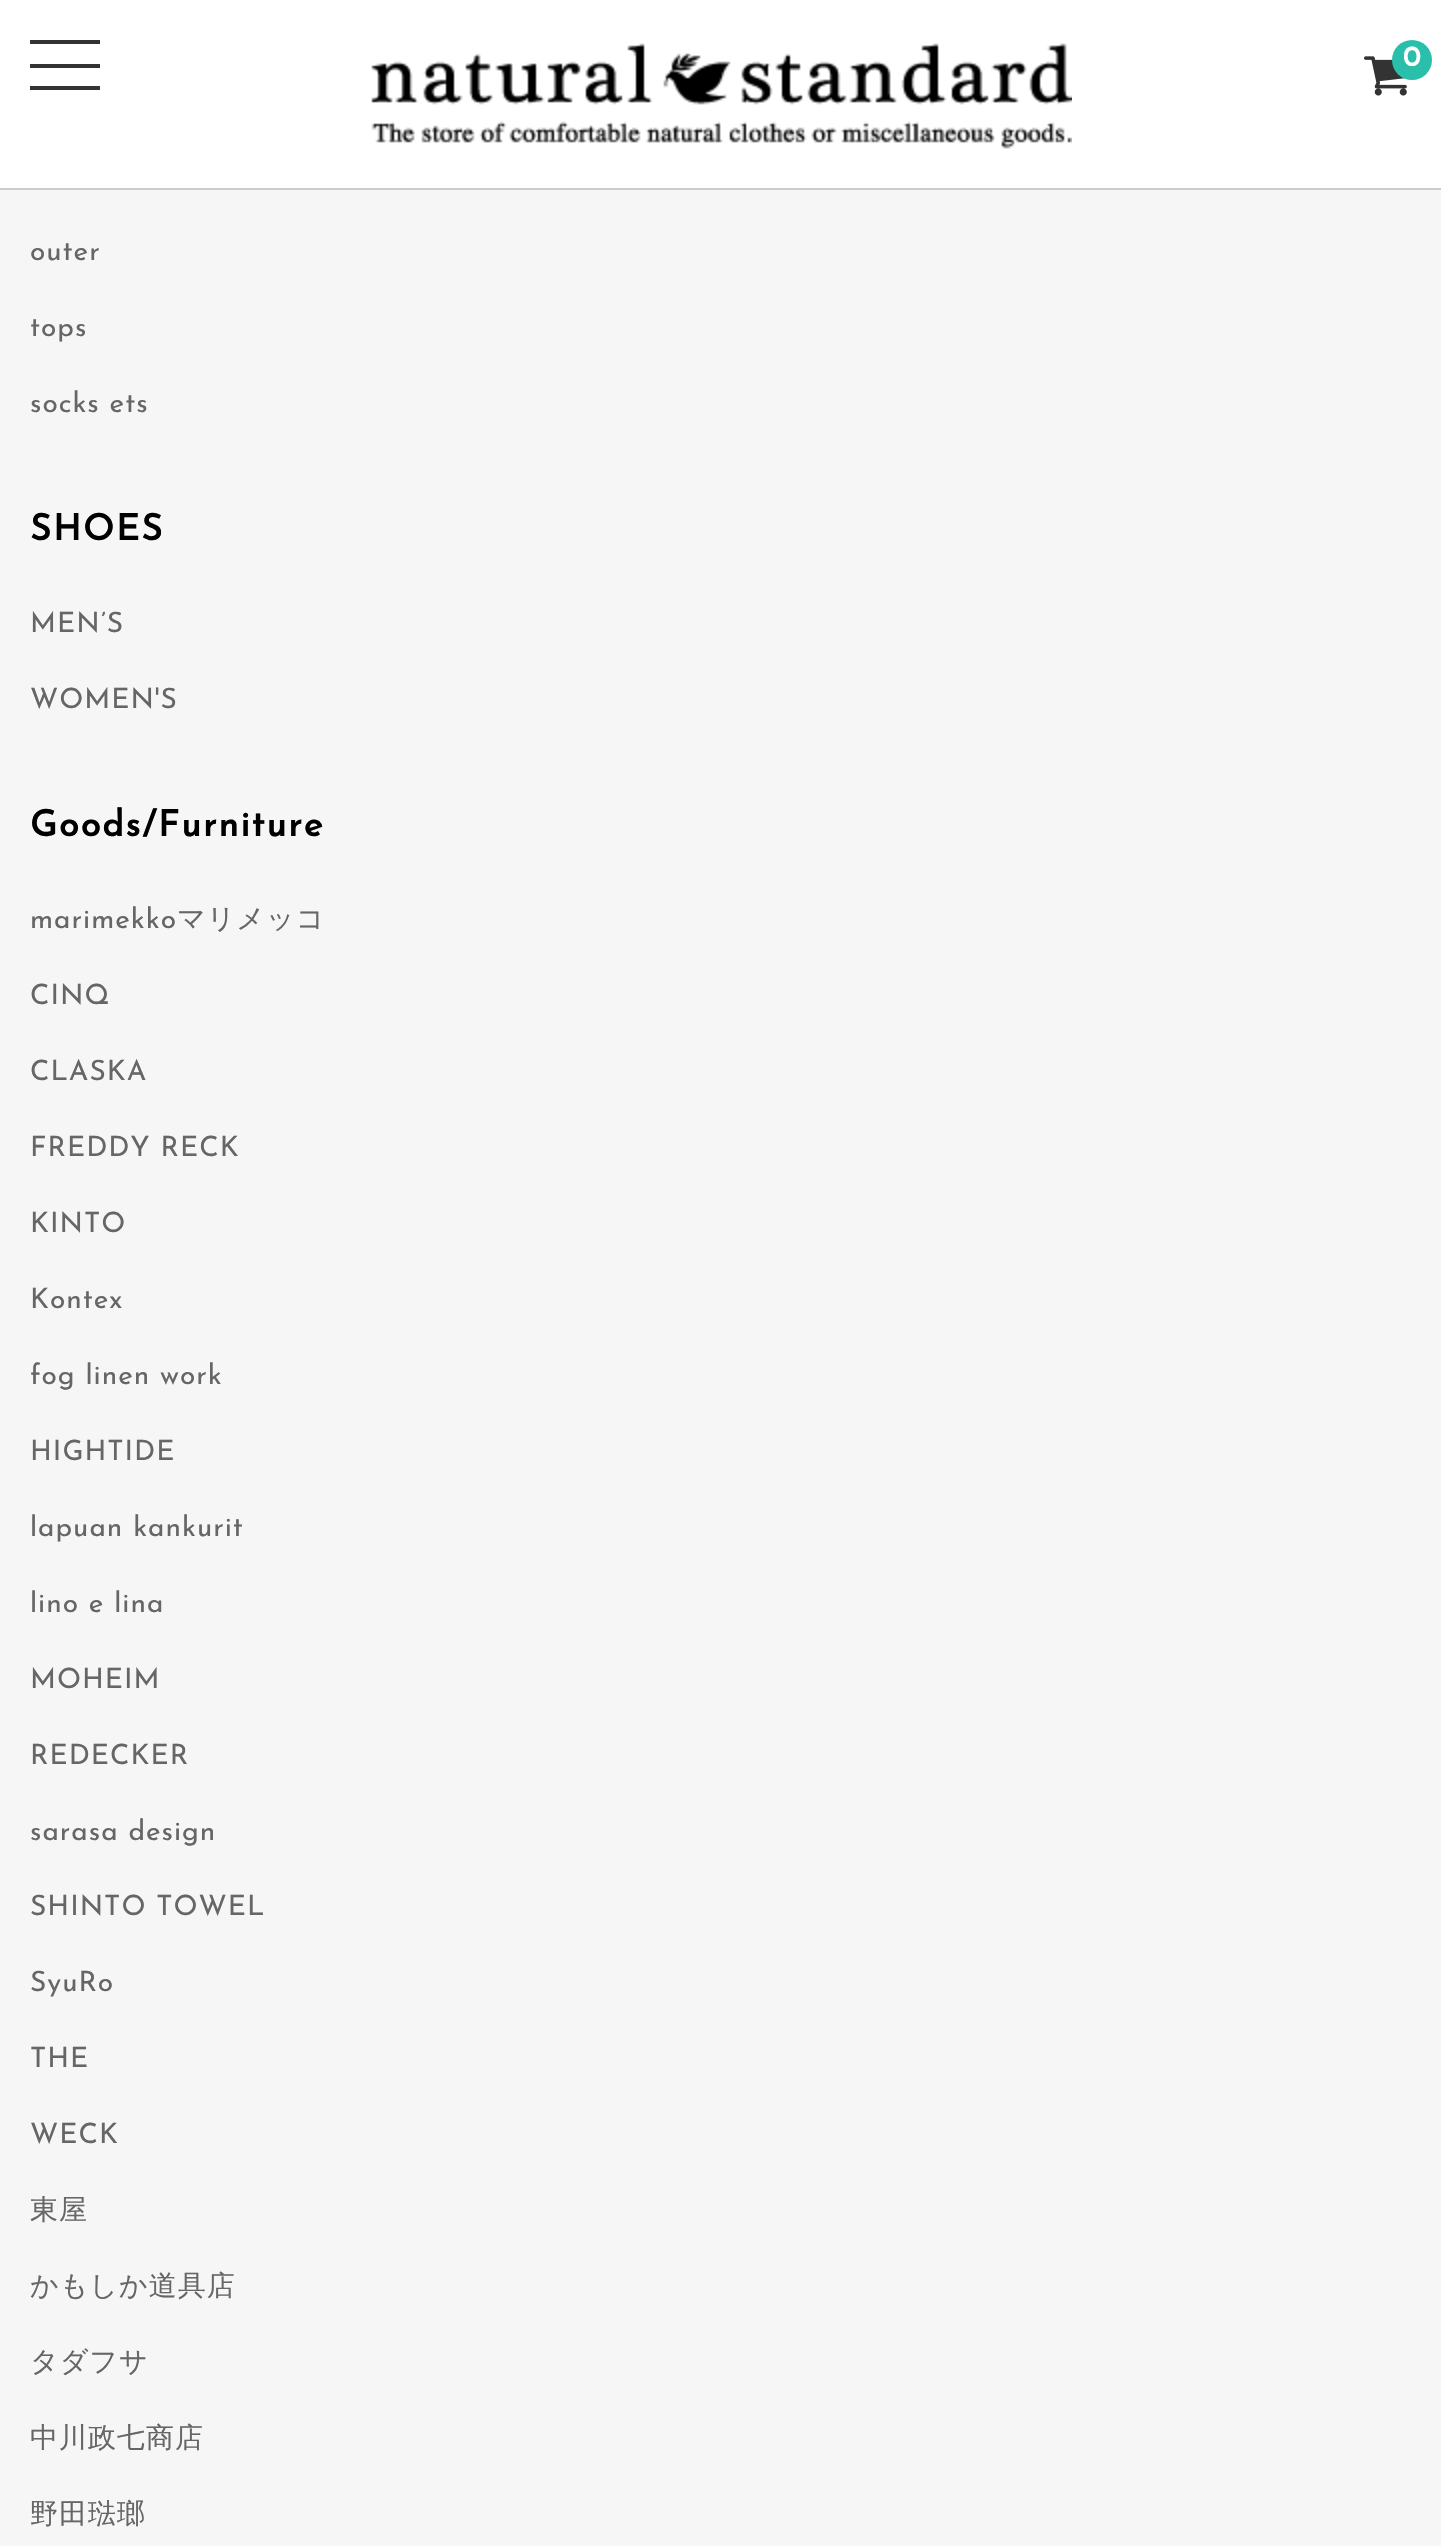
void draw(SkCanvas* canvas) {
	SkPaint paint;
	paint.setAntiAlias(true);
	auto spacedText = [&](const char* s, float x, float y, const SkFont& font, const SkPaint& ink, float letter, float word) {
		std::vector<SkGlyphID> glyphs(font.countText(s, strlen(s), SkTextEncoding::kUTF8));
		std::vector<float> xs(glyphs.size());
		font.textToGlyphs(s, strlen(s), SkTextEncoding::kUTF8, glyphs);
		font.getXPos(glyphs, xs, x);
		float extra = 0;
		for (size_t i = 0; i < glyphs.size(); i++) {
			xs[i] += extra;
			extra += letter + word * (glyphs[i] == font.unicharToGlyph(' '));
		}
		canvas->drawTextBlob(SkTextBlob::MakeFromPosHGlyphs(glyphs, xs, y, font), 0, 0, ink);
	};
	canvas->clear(0xfff6f6f6);
	paint.setColor(0xffffffff);
	canvas->drawRect(SkRect::MakeXYWH(0, 0, 1441, 188), paint);
	paint.setColor(0xffcccccc);
	canvas->drawRect(SkRect::MakeXYWH(0, 188, 1441, 2), paint);
	canvas->drawImageRect(SkImages::DeferredFromEncodedData(SkData::MakeFromFileName("img1.png")), SkRect::MakeXYWH(371, 43, 701, 106), SkSamplingOptions());
	paint.setColor(0xff333333);
	canvas->drawRect(SkRect::MakeXYWH(30, 40, 70, 4), paint);
	canvas->drawRect(SkRect::MakeXYWH(30, 64, 70, 4), paint);
	canvas->drawRect(SkRect::MakeXYWH(30, 86, 70, 4), paint);
	canvas->drawImageRect(SkImages::DeferredFromEncodedData(SkData::MakeFromFileName("img2.png")), SkRect::MakeXYWH(1364, 56, 43, 40), SkSamplingOptions());
	paint.setColor(0xff2abfab);
	canvas->drawCircle(1412, 60, 20, paint);
	SkFont f1(fontMgr->matchFamilyStyle("Josefin Sans", SkFontStyle::Bold()), 28);
	f1.setSubpixel(true);
	paint.setColor(0xffffffff);
	spacedText("0", 1403, 66, f1, paint, 1, 0);
	SkFont f2(fontMgr->matchFamilyStyle("Josefin Sans", SkFontStyle(100, SkFontStyle::kNormal_Width, SkFontStyle::kUpright_Slant)), 28);
	f2.setSubpixel(true);
	paint.setColor(0xff666666);
	spacedText("outer", 30, 260, f2, paint, 1, 0);
	spacedText("tops", 30, 336, f2, paint, 1, 0);
	spacedText("socks ets", 30, 412, f2, paint, 1, 0);
	SkFont f3(fontMgr->matchFamilyStyle("Josefin Sans", SkFontStyle::Bold()), 36);
	f3.setSubpixel(true);
	paint.setColor(0xff000000);
	spacedText("SHOES", 30, 540, f3, paint, 2, 0);
	paint.setColor(0xff666666);
	spacedText("MEN’S", 30, 632, f2, paint, 1, 0);
	spacedText("WOMEN'S", 30, 708, f2, paint, 1, 0);
	paint.setColor(0xff000000);
	spacedText("Goods/Furniture", 30, 836, f3, paint, 2, 0);
	paint.setColor(0xff666666);
	spacedText("marimekko", 30, 928, f2, paint, 1, 0);
	SkFont f4(fontMgr->matchFamilyStyle("WenQuanYi Zen Hei", SkFontStyle(500, SkFontStyle::kNormal_Width, SkFontStyle::kUpright_Slant)), 28);
	f4.setSubpixel(true);
	spacedText("マリメッコ", 177, 928, f4, paint, 1, 0);
	spacedText("CINQ", 30, 1004, f2, paint, 1, 0);
	spacedText("CLASKA", 30, 1080, f2, paint, 1, 0);
	spacedText("FREDDY RECK", 30, 1156, f2, paint, 1, 0);
	spacedText("KINTO", 30, 1232, f2, paint, 1, 0);
	spacedText("Kontex", 30, 1308, f2, paint, 1, 0);
	spacedText("fog linen work", 30, 1384, f2, paint, 1, 0);
	spacedText("HIGHTIDE", 30, 1460, f2, paint, 1, 0);
	spacedText("lapuan kankurit", 30, 1536, f2, paint, 1, 0);
	spacedText("lino e lina", 30, 1612, f2, paint, 1, 0);
	spacedText("MOHEIM", 30, 1688, f2, paint, 1, 0);
	spacedText("REDECKER", 30, 1764, f2, paint, 1, 0);
	spacedText("sarasa design", 30, 1840, f2, paint, 1, 0);
	spacedText("SHINTO TOWEL", 30, 1915, f2, paint, 1, 0);
	spacedText("SyuRo", 30, 1991, f2, paint, 1, 0);
	spacedText("THE", 30, 2067, f2, paint, 1, 0);
	spacedText("WECK", 30, 2143, f2, paint, 1, 0);
	spacedText("東屋", 30, 2219, f4, paint, 1, 0);
	spacedText("かもしか道具店", 30, 2295, f4, paint, 1, 0);
	spacedText("タダフサ", 30, 2371, f4, paint, 1, 0);
	spacedText("中川政七商店", 30, 2447, f4, paint, 1, 0);
	spacedText("野田琺瑯", 30, 2523, f4, paint, 1, 0);
}
